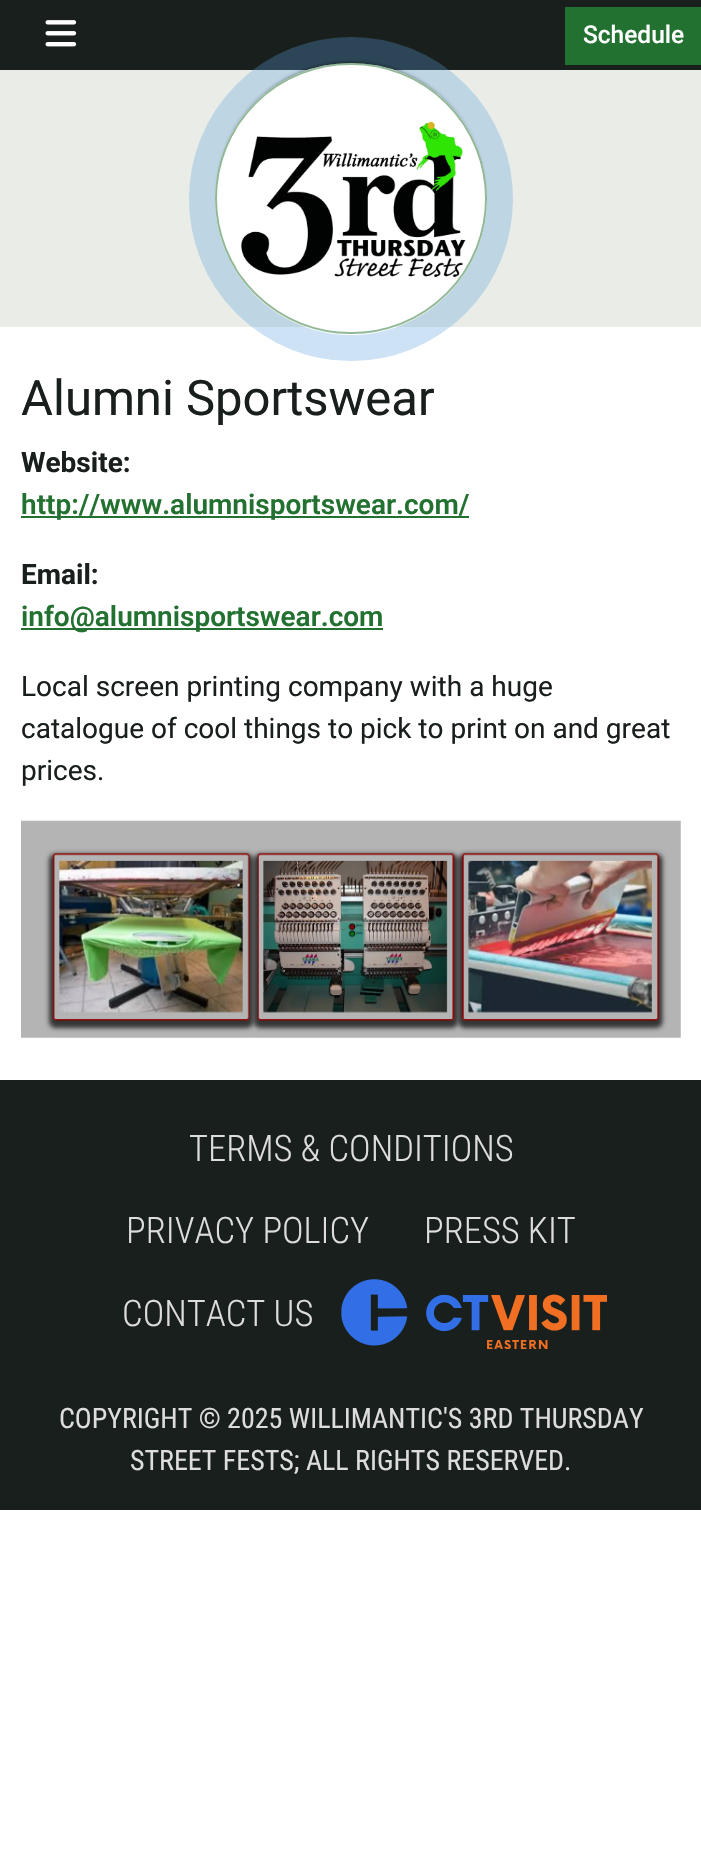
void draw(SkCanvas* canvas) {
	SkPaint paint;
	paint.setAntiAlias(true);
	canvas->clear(0xffffffff);
	paint.setColor(0xff191f1c);
	canvas->drawRect(SkRect::MakeXYWH(0, 0, 701, 70), paint);
	canvas->drawImageRect(SkImages::DeferredFromEncodedData(SkData::MakeFromFileName("img1.png")), SkRect::MakeXYWH(45, 20, 32, 27), SkSamplingOptions());
	paint.setColor(0xff237130);
	canvas->drawRect(SkRect::MakeXYWH(565, 7, 136, 58), paint);
	SkFont f1(fontMgr->matchFamilyStyle("Roboto", SkFontStyle(500, SkFontStyle::kNormal_Width, SkFontStyle::kUpright_Slant)), 24.5);
	f1.setSubpixel(true);
	paint.setColor(0xffffffff);
	canvas->drawString("Schedule", 583, 43, f1, paint);
	paint.setColor(0xffeaece7);
	canvas->drawRect(SkRect::MakeXYWH(0, 70, 701, 257), paint);
	paint.setStroke(true);
	paint.setStrokeWidth(26);
	paint.setColor(0x4d58a0de);
	canvas->drawCircle(351, 199, 149, paint);
	paint.setStroke(false);
	paint.setColor(0xb3000000);
	paint.setMaskFilter(SkMaskFilter::MakeBlur(kNormal_SkBlurStyle, 2));
	canvas->drawRoundRect(SkRect::MakeXYWH(219, 63, 264, 264), 132, 132, paint);
	paint.setMaskFilter(nullptr);
	paint.setColor(0xffffffff);
	canvas->drawRoundRect(SkRect::MakeXYWH(215, 63, 272, 271), 135.5, 135.5, paint);
	paint.setStroke(true);
	paint.setStrokeWidth(2);
	paint.setColor(0x80237130);
	canvas->drawRoundRect(SkRect::MakeXYWH(216, 64, 270, 269), 134.5, 134.5, paint);
	canvas->drawImageRect(SkImages::DeferredFromEncodedData(SkData::MakeFromFileName("img2.png")), SkRect::MakeXYWH(236, 121, 230, 158), SkSamplingOptions());
	SkFont f2(fontMgr->matchFamilyStyle("Roboto", SkFontStyle::Normal()), 49);
	f2.setSubpixel(true);
	paint.setStroke(false);
	paint.setColor(0xff191f1c);
	canvas->drawString("Alumni Sportswear", 21, 415, f2, paint);
	SkFont f3(fontMgr->matchFamilyStyle("Roboto", SkFontStyle::Bold()), 28);
	f3.setSubpixel(true);
	canvas->drawString("Website:", 21, 472, f3, paint);
	paint.setColor(0xff237130);
	canvas->drawRect(SkRect::MakeXYWH(21, 516, 448, 2), paint);
	SkFont f4(fontMgr->matchFamilyStyle("Roboto", SkFontStyle(600, SkFontStyle::kNormal_Width, SkFontStyle::kUpright_Slant)), 28);
	f4.setSubpixel(true);
	canvas->drawString("http://www.alumnisportswear.com/", 21, 514, f4, paint);
	paint.setColor(0xff191f1c);
	canvas->drawString("Email:", 21, 584, f3, paint);
	paint.setColor(0xff237130);
	canvas->drawRect(SkRect::MakeXYWH(21, 628, 362, 2), paint);
	canvas->drawString("info@alumnisportswear.com", 21, 626, f4, paint);
	SkFont f5(fontMgr->matchFamilyStyle("Roboto", SkFontStyle::Normal()), 28);
	f5.setSubpixel(true);
	paint.setColor(0xff191f1c);
	canvas->drawString("Local screen printing company with a huge", 21, 696, f5, paint);
	canvas->drawString("catalogue of cool things to pick to print on and great", 21, 738, f5, paint);
	canvas->drawString("prices.", 21, 780, f5, paint);
	canvas->drawImageRect(SkImages::DeferredFromEncodedData(SkData::MakeFromFileName("img3.png")), SkRect::MakeXYWH(21, 820, 660, 218), SkSamplingOptions());
	canvas->drawRect(SkRect::MakeXYWH(0, 1080, 701, 430), paint);
	SkFont f6(fontMgr->matchFamilyStyle("Roboto Condensed", SkFontStyle(300, SkFontStyle::kNormal_Width, SkFontStyle::kUpright_Slant)), 36.5);
	f6.setSubpixel(true);
	paint.setColor(0xffdddddd);
	canvas->drawString("TERMS & CONDITIONS", 189, 1161, f6, paint);
	canvas->drawString("PRIVACY POLICY", 126, 1243, f6, paint);
	canvas->drawString("PRESS KIT", 424, 1243, f6, paint);
	canvas->drawString("CONTACT US", 122, 1326, f6, paint);
	canvas->drawImageRect(SkImages::DeferredFromEncodedData(SkData::MakeFromFileName("img4.png")), SkRect::MakeXYWH(341, 1279, 266, 70), SkSamplingOptions());
	SkFont f7(fontMgr->matchFamilyStyle("Roboto Condensed", SkFontStyle::Normal()), 28);
	f7.setSubpixel(true);
	canvas->drawString("COPYRIGHT © 2025 WILLIMANTIC'S 3RD THURSDAY", 59, 1428, f7, paint);
	canvas->drawString("STREET FESTS; ALL RIGHTS RESERVED.", 130, 1470, f7, paint);
}
